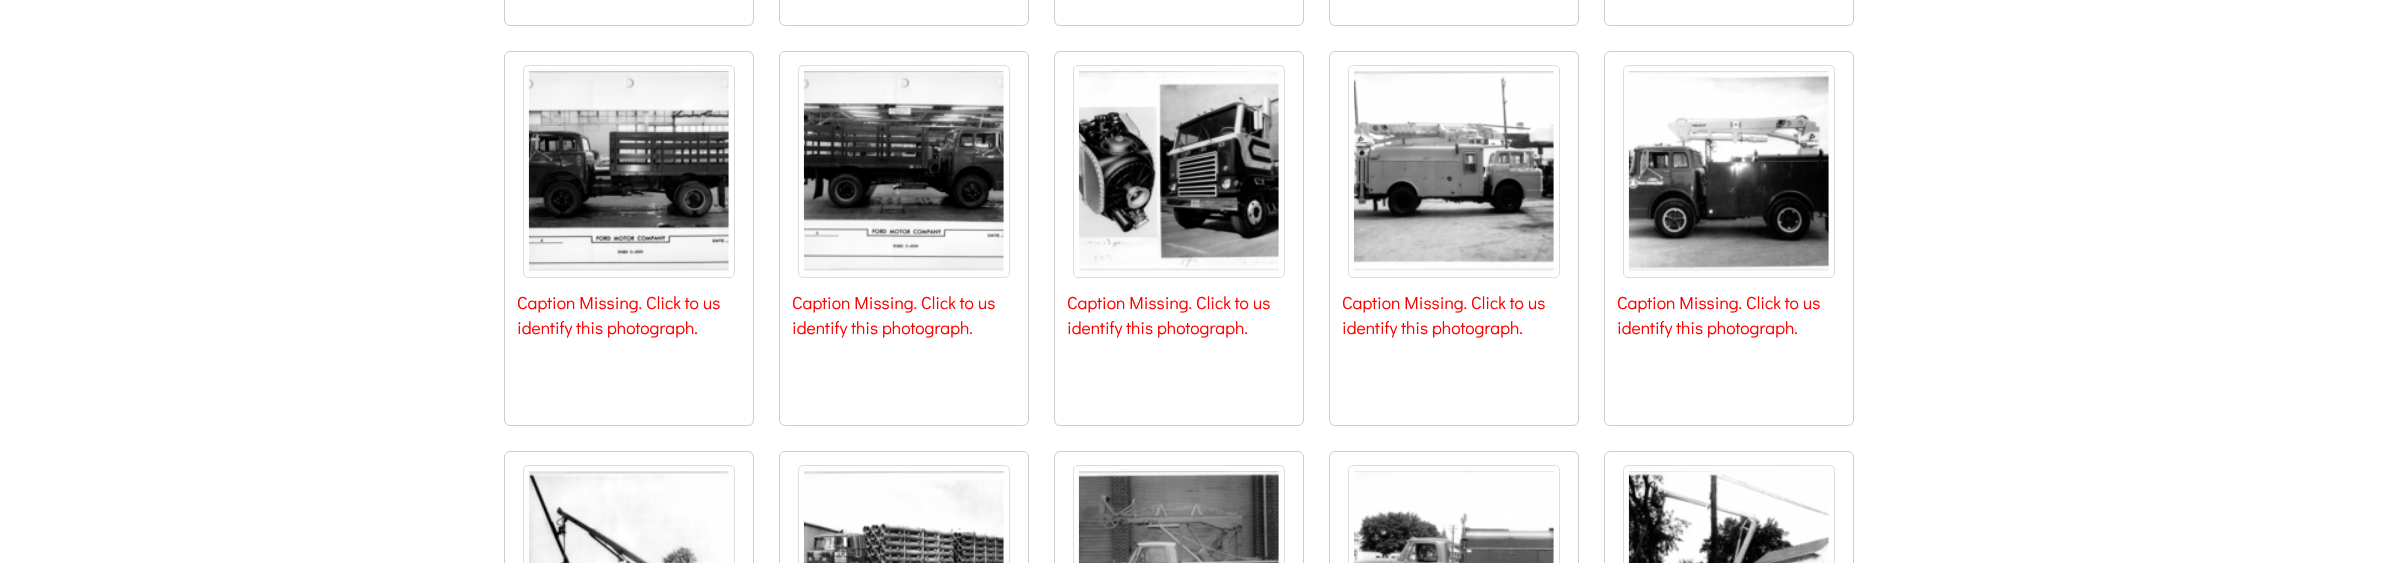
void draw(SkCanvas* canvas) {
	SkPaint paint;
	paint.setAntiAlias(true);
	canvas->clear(0xffffffff);
	paint.setStroke(true);
	paint.setStrokeWidth(1);
	paint.setColor(0xffcccccc);
	canvas->drawRoundRect(SkRect::MakeXYWH(504.5, -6.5, 249, 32), 5.5, 5.5, paint);
	canvas->drawRoundRect(SkRect::MakeXYWH(779.5, -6.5, 249, 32), 5.5, 5.5, paint);
	canvas->drawRoundRect(SkRect::MakeXYWH(1054.5, -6.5, 249, 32), 5.5, 5.5, paint);
	canvas->drawRoundRect(SkRect::MakeXYWH(1329.5, -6.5, 249, 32), 5.5, 5.5, paint);
	canvas->drawRoundRect(SkRect::MakeXYWH(1604.5, -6.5, 249, 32), 5.5, 5.5, paint);
	canvas->drawRoundRect(SkRect::MakeXYWH(504.5, 51.5, 249, 374), 5.5, 5.5, paint);
	paint.setColor(0xffdddddd);
	canvas->drawRoundRect(SkRect::MakeXYWH(523.5, 65.5, 211, 212), 4.5, 4.5, paint);
	canvas->drawImageRect(SkImages::DeferredFromEncodedData(SkData::MakeFromFileName("img1.png")), SkRect::MakeXYWH(528, 71, 201, 200), SkSamplingOptions());
	SkFont f1(fontMgr->matchFamilyStyle("Didact Gothic", SkFontStyle::Normal()), 17.5);
	f1.setSubpixel(true);
	paint.setStroke(false);
	paint.setColor(0xffff0000);
	canvas->drawString("Caption Missing. Click to us", 517, 309, f1, paint);
	canvas->drawString("identify this photograph.", 517, 334, f1, paint);
	paint.setStroke(true);
	paint.setColor(0xffcccccc);
	canvas->drawRoundRect(SkRect::MakeXYWH(779.5, 51.5, 249, 374), 5.5, 5.5, paint);
	paint.setColor(0xffdddddd);
	canvas->drawRoundRect(SkRect::MakeXYWH(798.5, 65.5, 211, 212), 4.5, 4.5, paint);
	canvas->drawImageRect(SkImages::DeferredFromEncodedData(SkData::MakeFromFileName("img2.png")), SkRect::MakeXYWH(803, 71, 201, 200), SkSamplingOptions());
	paint.setStroke(false);
	paint.setColor(0xffff0000);
	canvas->drawString("Caption Missing. Click to us", 792, 309, f1, paint);
	canvas->drawString("identify this photograph.", 792, 334, f1, paint);
	paint.setStroke(true);
	paint.setColor(0xffcccccc);
	canvas->drawRoundRect(SkRect::MakeXYWH(1054.5, 51.5, 249, 374), 5.5, 5.5, paint);
	paint.setColor(0xffdddddd);
	canvas->drawRoundRect(SkRect::MakeXYWH(1073.5, 65.5, 211, 212), 4.5, 4.5, paint);
	canvas->drawImageRect(SkImages::DeferredFromEncodedData(SkData::MakeFromFileName("img3.png")), SkRect::MakeXYWH(1078, 71, 201, 200), SkSamplingOptions());
	paint.setStroke(false);
	paint.setColor(0xffff0000);
	canvas->drawString("Caption Missing. Click to us", 1067, 309, f1, paint);
	canvas->drawString("identify this photograph.", 1067, 334, f1, paint);
	paint.setStroke(true);
	paint.setColor(0xffcccccc);
	canvas->drawRoundRect(SkRect::MakeXYWH(1329.5, 51.5, 249, 374), 5.5, 5.5, paint);
	paint.setColor(0xffdddddd);
	canvas->drawRoundRect(SkRect::MakeXYWH(1348.5, 65.5, 211, 212), 4.5, 4.5, paint);
	canvas->drawImageRect(SkImages::DeferredFromEncodedData(SkData::MakeFromFileName("img4.png")), SkRect::MakeXYWH(1353, 71, 201, 200), SkSamplingOptions());
	paint.setStroke(false);
	paint.setColor(0xffff0000);
	canvas->drawString("Caption Missing. Click to us", 1342, 309, f1, paint);
	canvas->drawString("identify this photograph.", 1342, 334, f1, paint);
	paint.setStroke(true);
	paint.setColor(0xffcccccc);
	canvas->drawRoundRect(SkRect::MakeXYWH(1604.5, 51.5, 249, 374), 5.5, 5.5, paint);
	paint.setColor(0xffdddddd);
	canvas->drawRoundRect(SkRect::MakeXYWH(1623.5, 65.5, 211, 212), 4.5, 4.5, paint);
	canvas->drawImageRect(SkImages::DeferredFromEncodedData(SkData::MakeFromFileName("img5.png")), SkRect::MakeXYWH(1628, 71, 201, 200), SkSamplingOptions());
	paint.setStroke(false);
	paint.setColor(0xffff0000);
	canvas->drawString("Caption Missing. Click to us", 1617, 309, f1, paint);
	canvas->drawString("identify this photograph.", 1617, 334, f1, paint);
	paint.setStroke(true);
	paint.setColor(0xffcccccc);
	canvas->drawRoundRect(SkRect::MakeXYWH(504.5, 451.5, 249, 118), 5.5, 5.5, paint);
	paint.setColor(0xffdddddd);
	canvas->drawRoundRect(SkRect::MakeXYWH(523.5, 465.5, 211, 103), 4.5, 4.5, paint);
	canvas->drawImageRect(SkImages::DeferredFromEncodedData(SkData::MakeFromFileName("img6.png")), SkRect::MakeXYWH(528, 471, 201, 92), SkSamplingOptions());
	paint.setColor(0xffcccccc);
	canvas->drawRoundRect(SkRect::MakeXYWH(779.5, 451.5, 249, 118), 5.5, 5.5, paint);
	paint.setColor(0xffdddddd);
	canvas->drawRoundRect(SkRect::MakeXYWH(798.5, 465.5, 211, 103), 4.5, 4.5, paint);
	canvas->drawImageRect(SkImages::DeferredFromEncodedData(SkData::MakeFromFileName("img7.png")), SkRect::MakeXYWH(803, 471, 201, 92), SkSamplingOptions());
	paint.setColor(0xffcccccc);
	canvas->drawRoundRect(SkRect::MakeXYWH(1054.5, 451.5, 249, 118), 5.5, 5.5, paint);
	paint.setColor(0xffdddddd);
	canvas->drawRoundRect(SkRect::MakeXYWH(1073.5, 465.5, 211, 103), 4.5, 4.5, paint);
	canvas->drawImageRect(SkImages::DeferredFromEncodedData(SkData::MakeFromFileName("img8.png")), SkRect::MakeXYWH(1078, 471, 201, 92), SkSamplingOptions());
	paint.setColor(0xffcccccc);
	canvas->drawRoundRect(SkRect::MakeXYWH(1329.5, 451.5, 249, 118), 5.5, 5.5, paint);
	paint.setColor(0xffdddddd);
	canvas->drawRoundRect(SkRect::MakeXYWH(1348.5, 465.5, 211, 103), 4.5, 4.5, paint);
	canvas->drawImageRect(SkImages::DeferredFromEncodedData(SkData::MakeFromFileName("img9.png")), SkRect::MakeXYWH(1353, 471, 201, 92), SkSamplingOptions());
	paint.setColor(0xffcccccc);
	canvas->drawRoundRect(SkRect::MakeXYWH(1604.5, 451.5, 249, 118), 5.5, 5.5, paint);
	paint.setColor(0xffdddddd);
	canvas->drawRoundRect(SkRect::MakeXYWH(1623.5, 465.5, 211, 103), 4.5, 4.5, paint);
	canvas->drawImageRect(SkImages::DeferredFromEncodedData(SkData::MakeFromFileName("img10.png")), SkRect::MakeXYWH(1628, 471, 201, 92), SkSamplingOptions());
}
